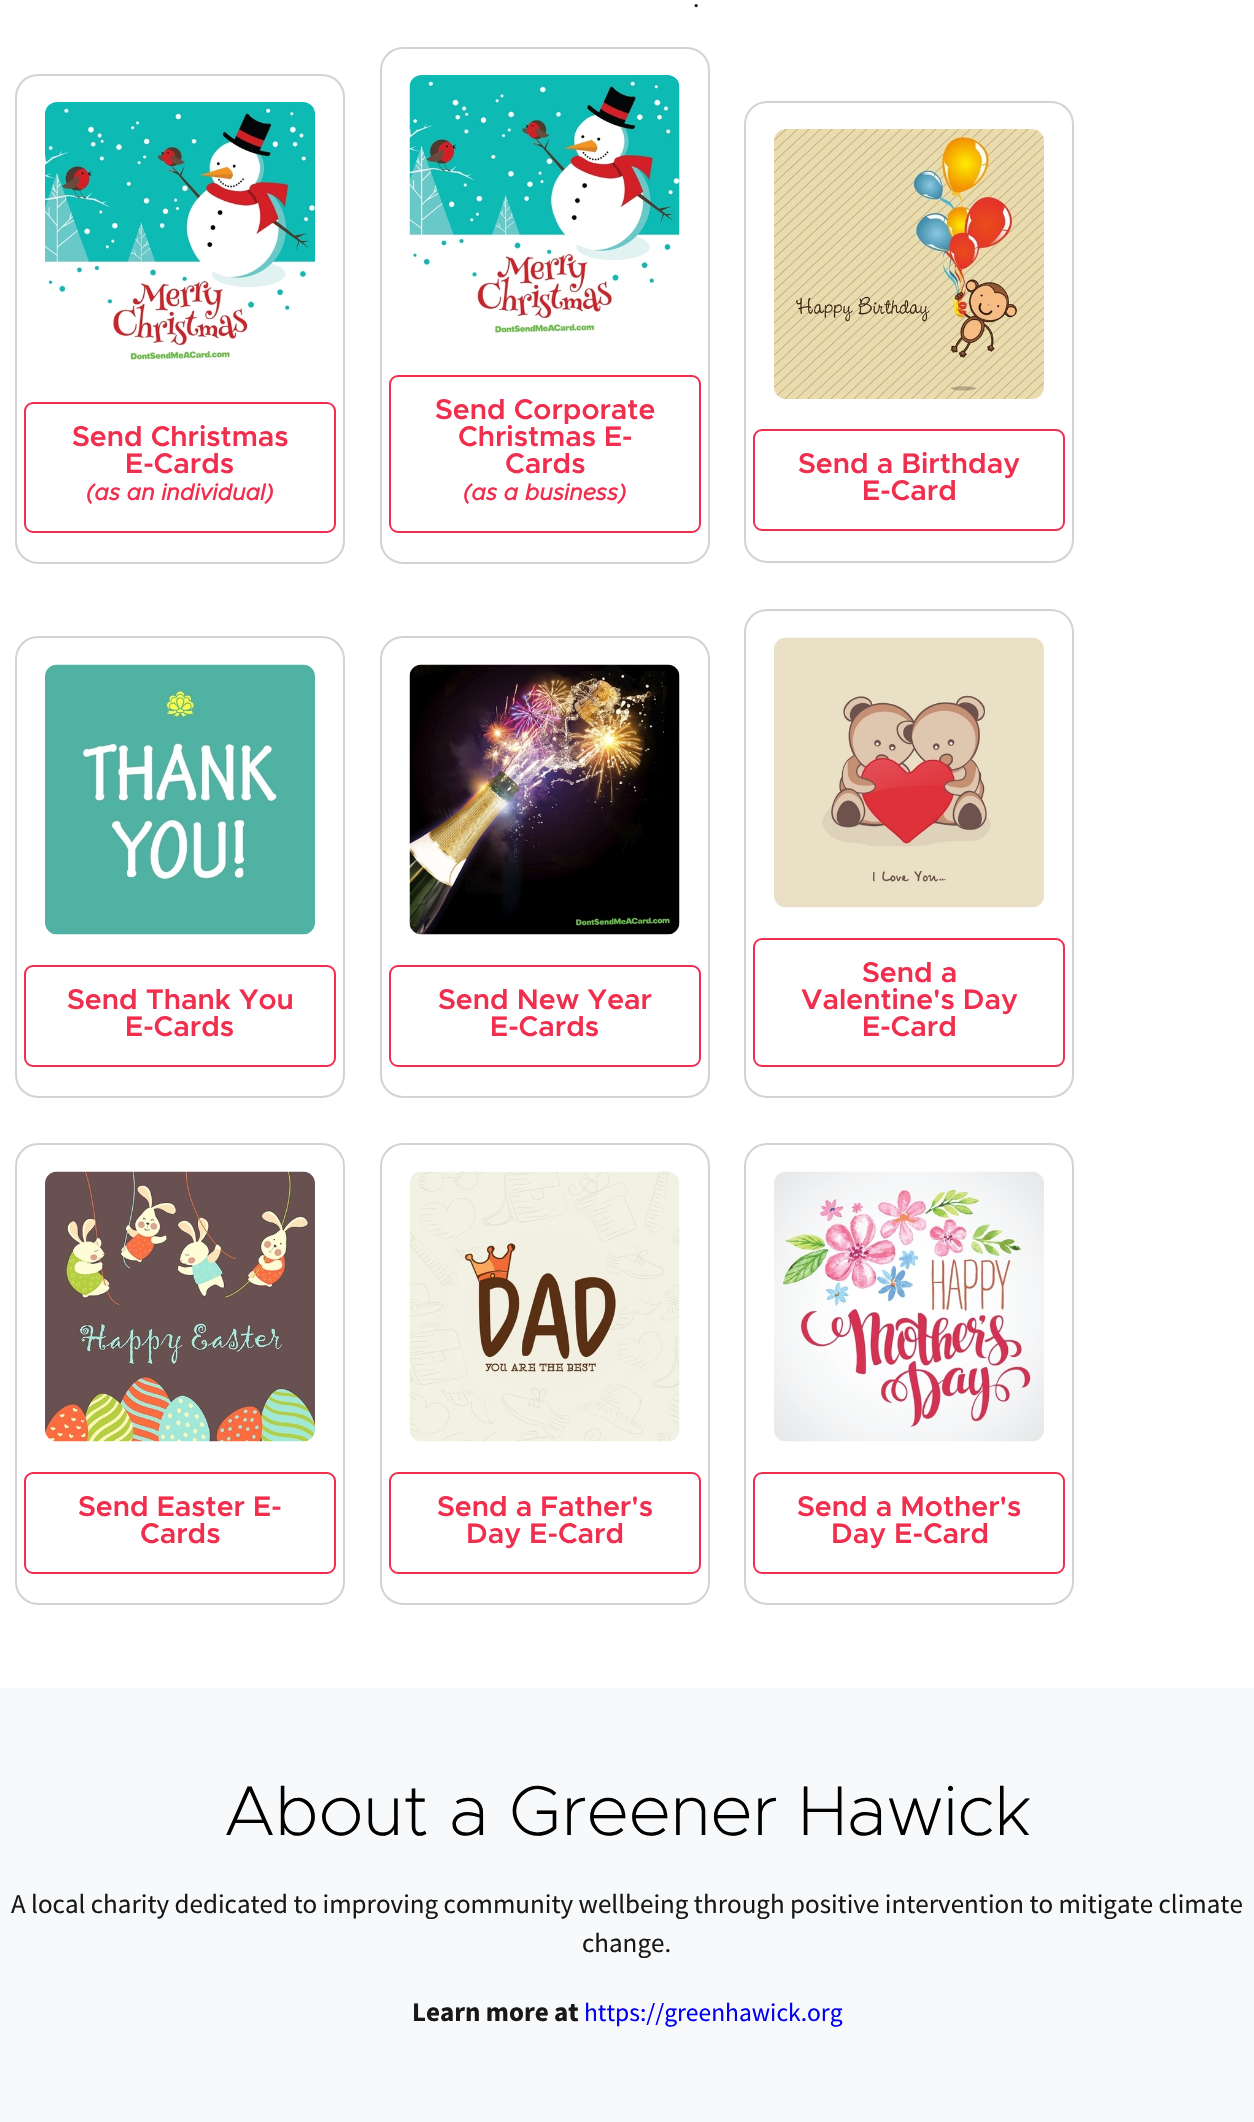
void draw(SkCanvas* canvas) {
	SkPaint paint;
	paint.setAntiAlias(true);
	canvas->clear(0xffffffff);
	SkFont f1(fontMgr->matchFamilyStyle("Source Sans Pro", SkFontStyle::Normal()), 25.5);
	f1.setSubpixel(true);
	paint.setColor(0xff181818);
	canvas->drawString(".", 693, 7, f1, paint);
	paint.setStroke(true);
	paint.setStrokeWidth(2);
	paint.setColor(0xffd3d3d3);
	canvas->drawRoundRect(SkRect::MakeXYWH(16, 75, 328, 488), 22, 22, paint);
	canvas->drawImageRect(SkImages::DeferredFromEncodedData(SkData::MakeFromFileName("img1.png")), SkRect::MakeXYWH(45, 102, 270, 259), SkSamplingOptions());
	paint.setColor(0xfff02e4e);
	canvas->drawRoundRect(SkRect::MakeXYWH(25, 403, 310, 129), 8, 8, paint);
	SkFont f2(fontMgr->matchFamilyStyle("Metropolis", SkFontStyle(600, SkFontStyle::kNormal_Width, SkFontStyle::kUpright_Slant)), 28.5);
	f2.setSubpixel(true);
	paint.setStroke(false);
	canvas->drawString("Send Christmas", 72, 446, f2, paint);
	canvas->drawString("E-Cards", 125, 473, f2, paint);
	SkFont f3(fontMgr->matchFamilyStyle("Metropolis", SkFontStyle::BoldItalic()), 22.75);
	f3.setSubpixel(true);
	canvas->drawString("(as an individual)", 86, 500, f3, paint);
	paint.setStroke(true);
	paint.setColor(0xffd3d3d3);
	canvas->drawRoundRect(SkRect::MakeXYWH(381, 48, 328, 515), 22, 22, paint);
	canvas->drawImageRect(SkImages::DeferredFromEncodedData(SkData::MakeFromFileName("img2.png")), SkRect::MakeXYWH(409, 75, 271, 259), SkSamplingOptions());
	paint.setColor(0xfff02e4e);
	canvas->drawRoundRect(SkRect::MakeXYWH(390, 376, 310, 156), 8, 8, paint);
	paint.setStroke(false);
	canvas->drawString("Send Corporate", 435, 419, f2, paint);
	canvas->drawString("Christmas E-", 458, 446, f2, paint);
	canvas->drawString("Cards", 505, 473, f2, paint);
	canvas->drawString("(as a business)", 463, 500, f3, paint);
	paint.setStroke(true);
	paint.setColor(0xffd3d3d3);
	canvas->drawRoundRect(SkRect::MakeXYWH(745, 102, 328, 460), 22, 22, paint);
	canvas->drawImageRect(SkImages::DeferredFromEncodedData(SkData::MakeFromFileName("img3.png")), SkRect::MakeXYWH(774, 129, 270, 270), SkSamplingOptions());
	paint.setColor(0xfff02e4e);
	canvas->drawRoundRect(SkRect::MakeXYWH(754, 430, 310, 100), 8, 8, paint);
	paint.setStroke(false);
	canvas->drawString("Send a Birthday", 798, 473, f2, paint);
	canvas->drawString("E-Card", 862, 500, f2, paint);
	paint.setStroke(true);
	paint.setColor(0xffd3d3d3);
	canvas->drawRoundRect(SkRect::MakeXYWH(16, 637, 328, 460), 22, 22, paint);
	canvas->drawImageRect(SkImages::DeferredFromEncodedData(SkData::MakeFromFileName("img4.png")), SkRect::MakeXYWH(45, 664, 270, 271), SkSamplingOptions());
	paint.setColor(0xfff02e4e);
	canvas->drawRoundRect(SkRect::MakeXYWH(25, 966, 310, 100), 8, 8, paint);
	paint.setStroke(false);
	canvas->drawString("Send Thank You", 67, 1009, f2, paint);
	canvas->drawString("E-Cards", 125, 1036, f2, paint);
	paint.setStroke(true);
	paint.setColor(0xffd3d3d3);
	canvas->drawRoundRect(SkRect::MakeXYWH(381, 637, 328, 460), 22, 22, paint);
	canvas->drawImageRect(SkImages::DeferredFromEncodedData(SkData::MakeFromFileName("img5.png")), SkRect::MakeXYWH(409, 664, 271, 271), SkSamplingOptions());
	paint.setColor(0xfff02e4e);
	canvas->drawRoundRect(SkRect::MakeXYWH(390, 966, 310, 100), 8, 8, paint);
	paint.setStroke(false);
	canvas->drawString("Send New Year", 438, 1009, f2, paint);
	canvas->drawString("E-Cards", 490, 1036, f2, paint);
	paint.setStroke(true);
	paint.setColor(0xffd3d3d3);
	canvas->drawRoundRect(SkRect::MakeXYWH(745, 610, 328, 487), 22, 22, paint);
	canvas->drawImageRect(SkImages::DeferredFromEncodedData(SkData::MakeFromFileName("img6.png")), SkRect::MakeXYWH(774, 637, 270, 271), SkSamplingOptions());
	paint.setColor(0xfff02e4e);
	canvas->drawRoundRect(SkRect::MakeXYWH(754, 939, 310, 127), 8, 8, paint);
	paint.setStroke(false);
	canvas->drawString("Send a", 862, 982, f2, paint);
	canvas->drawString("Valentine's Day", 801, 1009, f2, paint);
	canvas->drawString("E-Card", 862, 1036, f2, paint);
	paint.setStroke(true);
	paint.setColor(0xffd3d3d3);
	canvas->drawRoundRect(SkRect::MakeXYWH(16, 1144, 328, 460), 22, 22, paint);
	canvas->drawImageRect(SkImages::DeferredFromEncodedData(SkData::MakeFromFileName("img7.png")), SkRect::MakeXYWH(45, 1171, 270, 271), SkSamplingOptions());
	paint.setColor(0xfff02e4e);
	canvas->drawRoundRect(SkRect::MakeXYWH(25, 1473, 310, 100), 8, 8, paint);
	paint.setStroke(false);
	canvas->drawString("Send Easter E-", 78, 1516, f2, paint);
	canvas->drawString("Cards", 140, 1543, f2, paint);
	paint.setStroke(true);
	paint.setColor(0xffd3d3d3);
	canvas->drawRoundRect(SkRect::MakeXYWH(381, 1144, 328, 460), 22, 22, paint);
	canvas->drawImageRect(SkImages::DeferredFromEncodedData(SkData::MakeFromFileName("img8.png")), SkRect::MakeXYWH(409, 1171, 271, 271), SkSamplingOptions());
	paint.setColor(0xfff02e4e);
	canvas->drawRoundRect(SkRect::MakeXYWH(390, 1473, 310, 100), 8, 8, paint);
	paint.setStroke(false);
	canvas->drawString("Send a Father's", 437, 1516, f2, paint);
	canvas->drawString("Day E-Card", 466, 1543, f2, paint);
	paint.setStroke(true);
	paint.setColor(0xffd3d3d3);
	canvas->drawRoundRect(SkRect::MakeXYWH(745, 1144, 328, 460), 22, 22, paint);
	canvas->drawImageRect(SkImages::DeferredFromEncodedData(SkData::MakeFromFileName("img9.png")), SkRect::MakeXYWH(774, 1171, 270, 271), SkSamplingOptions());
	paint.setColor(0xfff02e4e);
	canvas->drawRoundRect(SkRect::MakeXYWH(754, 1473, 310, 100), 8, 8, paint);
	paint.setStroke(false);
	canvas->drawString("Send a Mother's", 797, 1516, f2, paint);
	canvas->drawString("Day E-Card", 831, 1543, f2, paint);
	paint.setColor(0xfff7f9fb);
	canvas->drawRect(SkRect::MakeXYWH(0, 1688, 1254, 434), paint);
	SkFont f4(fontMgr->matchFamilyStyle("Metropolis", SkFontStyle(200, SkFontStyle::kNormal_Width, SkFontStyle::kUpright_Slant)), 70.5);
	f4.setSubpixel(true);
	paint.setColor(0xff000000);
	canvas->drawString("About a Greener Hawick", 224, 1835, f4, paint);
	SkFont f5(fontMgr->matchFamilyStyle("Source Sans Pro", SkFontStyle::Normal()), 27);
	f5.setSubpixel(true);
	paint.setColor(0xff181818);
	canvas->drawString("A local charity dedicated to improving community wellbeing through positive intervention to mitigate climate", 11, 1913, f5, paint);
	canvas->drawString("change.", 582, 1952, f5, paint);
	SkFont f6(fontMgr->matchFamilyStyle("Source Sans Pro", SkFontStyle::Bold()), 27);
	f6.setSubpixel(true);
	canvas->drawString("Learn more at", 412, 2021, f6, paint);
	paint.setColor(0xff0000ee);
	canvas->drawString("https://greenhawick.org", 584, 2021, f1, paint);
}
